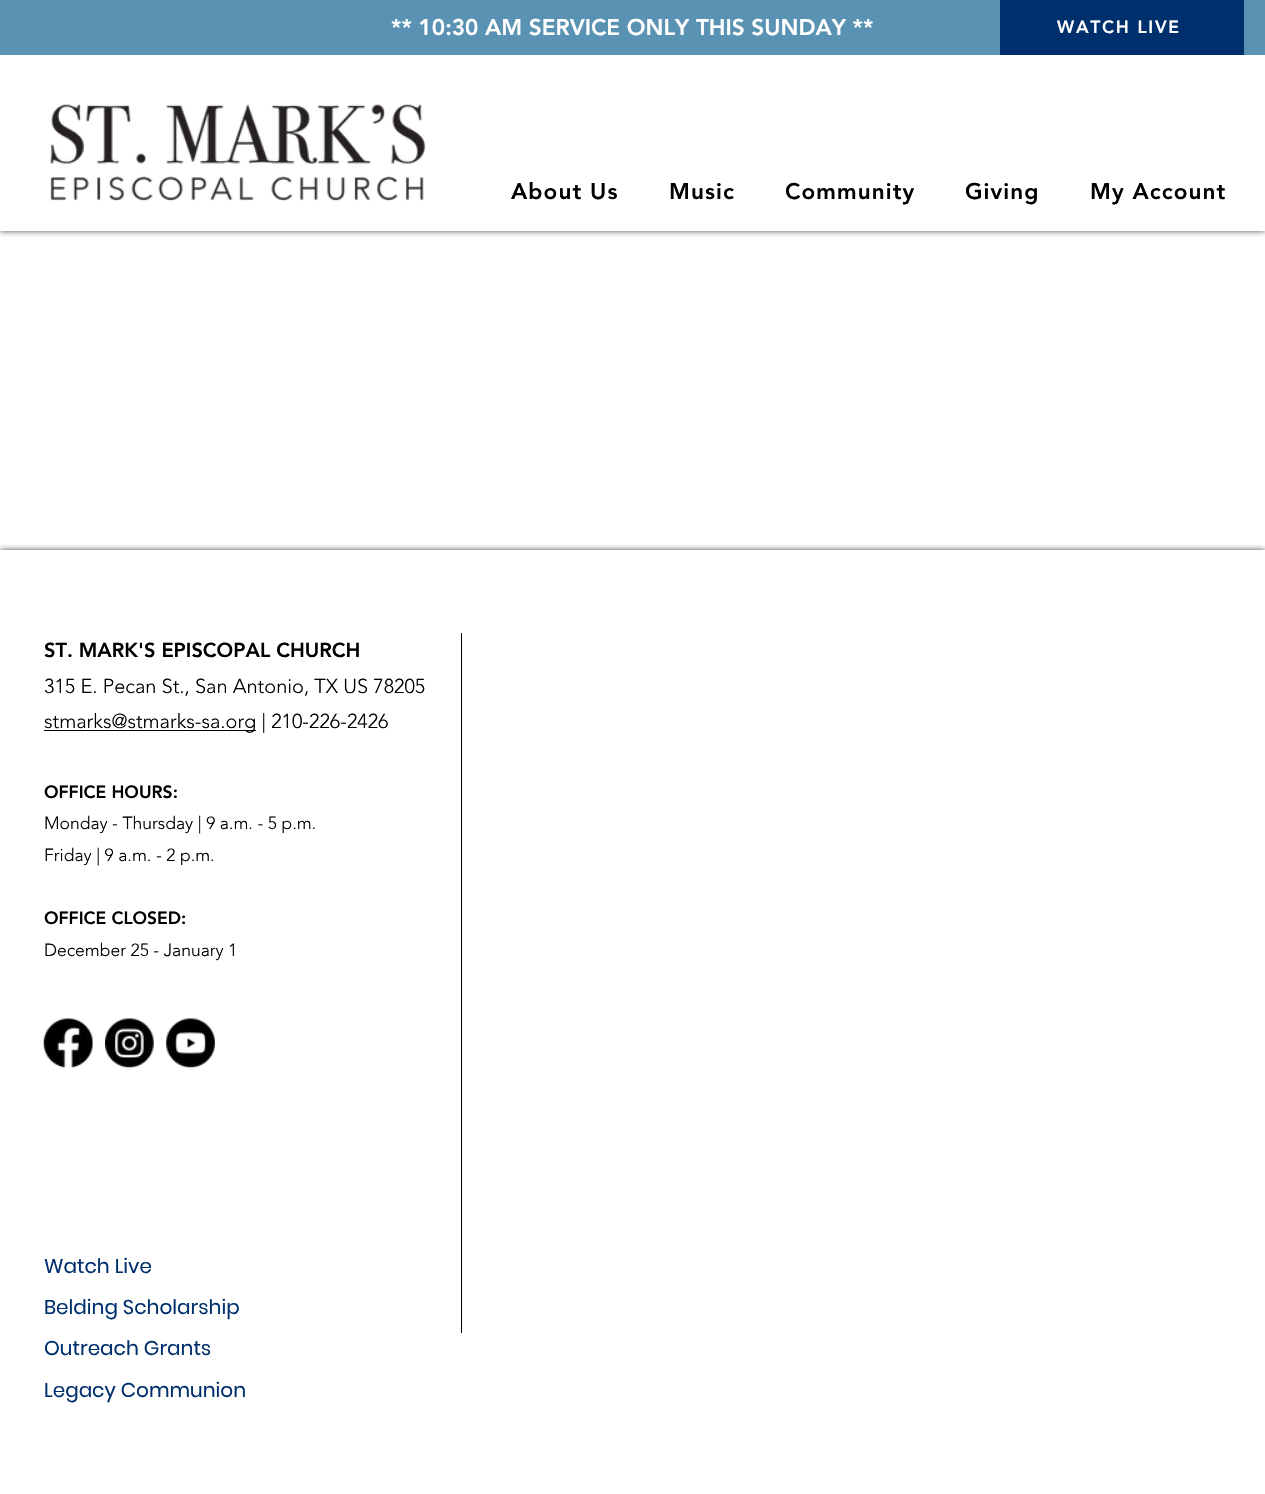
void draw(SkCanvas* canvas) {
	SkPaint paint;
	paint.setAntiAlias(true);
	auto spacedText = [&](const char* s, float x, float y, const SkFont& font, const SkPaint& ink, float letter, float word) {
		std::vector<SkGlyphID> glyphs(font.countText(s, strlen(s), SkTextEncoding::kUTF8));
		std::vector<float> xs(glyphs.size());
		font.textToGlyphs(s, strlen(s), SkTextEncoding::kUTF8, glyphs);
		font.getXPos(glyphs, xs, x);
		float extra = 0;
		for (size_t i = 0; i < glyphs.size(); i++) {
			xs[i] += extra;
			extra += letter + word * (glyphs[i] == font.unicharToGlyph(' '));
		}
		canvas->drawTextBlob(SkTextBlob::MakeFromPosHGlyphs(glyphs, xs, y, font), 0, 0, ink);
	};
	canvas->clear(0xffffffff);
	paint.setColor(0xb3000000);
	paint.setMaskFilter(SkMaskFilter::MakeBlur(kNormal_SkBlurStyle, 3));
	canvas->drawRect(SkRect::MakeXYWH(0, 0, 1265, 231), paint);
	paint.setMaskFilter(nullptr);
	paint.setColor(0xffffffff);
	canvas->drawRect(SkRect::MakeXYWH(0, 55, 1265, 176), paint);
	paint.setColor(0xff5992b3);
	canvas->drawRect(SkRect::MakeXYWH(0, 0, 1265, 55), paint);
	SkFont f1(fontMgr->matchFamilyStyle("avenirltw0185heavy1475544", SkFontStyle(900, SkFontStyle::kNormal_Width, SkFontStyle::kUpright_Slant)), 22.5);
	f1.setSubpixel(true);
	paint.setColor(0xffffffff);
	canvas->drawString("** 10:30 AM SERVICE ONLY THIS SUNDAY **", 391, 35, f1, paint);
	paint.setColor(0xff002f6d);
	canvas->drawRect(SkRect::MakeXYWH(1000, 0, 244, 55), paint);
	SkFont f2(fontMgr->matchFamilyStyle("avenirltw0185heavy1475544", SkFontStyle(900, SkFontStyle::kNormal_Width, SkFontStyle::kUpright_Slant)), 17.5);
	f2.setSubpixel(true);
	paint.setColor(0xffffffff);
	spacedText("WATCH LIVE", 1057, 33, f2, paint, 1.75, 0);
	canvas->drawImageRect(SkImages::DeferredFromEncodedData(SkData::MakeFromFileName("img1.png")), SkRect::MakeXYWH(50, 104, 376, 97), SkSamplingOptions());
	paint.setColor(0xff000000);
	spacedText("About Us", 511, 199, f1, paint, 1.1, 0);
	spacedText("Music", 669, 199, f1, paint, 1.1, 0);
	spacedText("Community", 785, 199, f1, paint, 1.1, 0);
	spacedText("Giving", 965, 199, f1, paint, 1.1, 0);
	spacedText("My Account", 1090, 199, f1, paint, 1.1, 0);
	canvas->save();
	canvas->clipRect(SkRect::MakeXYWH(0, 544, 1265, 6));
	paint.setColor(0xb3000000);
	paint.setMaskFilter(SkMaskFilter::MakeBlur(kNormal_SkBlurStyle, 3));
	canvas->drawRect(SkRect::MakeXYWH(0, 550, 1265, 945), paint);
	paint.setMaskFilter(nullptr);
	canvas->restore();
	SkFont f3(fontMgr->matchFamilyStyle("avenirltw0185heavy1475544", SkFontStyle(900, SkFontStyle::kNormal_Width, SkFontStyle::kUpright_Slant)), 20);
	f3.setSubpixel(true);
	paint.setColor(0xff000000);
	canvas->drawString("ST. MARK'S EPISCOPAL CHURCH", 44, 657, f3, paint);
	SkFont f4(fontMgr->matchFamilyStyle("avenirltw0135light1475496", SkFontStyle(300, SkFontStyle::kNormal_Width, SkFontStyle::kUpright_Slant)), 20);
	f4.setSubpixel(true);
	canvas->drawString("315 E. Pecan St., San Antonio, TX US 78205", 44, 693, f4, paint);
	canvas->drawRect(SkRect::MakeXYWH(44, 730, 212, 1), paint);
	canvas->drawString("stmarks@stmarks-sa.org | 210-226-2426", 44, 728, f4, paint);
	canvas->drawString("OFFICE HOURS:", 44, 798, f2, paint);
	SkFont f5(fontMgr->matchFamilyStyle("avenirltw0135light1475496", SkFontStyle(300, SkFontStyle::kNormal_Width, SkFontStyle::kUpright_Slant)), 17.5);
	f5.setSubpixel(true);
	canvas->drawString("Monday - Thursday | 9 a.m. - 5 p.m.", 44, 829, f5, paint);
	canvas->drawString("Friday | 9 a.m. - 2 p.m.", 44, 861, f5, paint);
	canvas->drawString("OFFICE CLOSED:", 44, 924, f2, paint);
	canvas->drawString("December 25 - January 1", 44, 956, f5, paint);
	canvas->drawRect(SkRect::MakeXYWH(461, 633, 1, 700), paint);
	canvas->drawImageRect(SkImages::DeferredFromEncodedData(SkData::MakeFromFileName("img2.png")), SkRect::MakeXYWH(43, 1018, 50, 50), SkSamplingOptions());
	canvas->drawImageRect(SkImages::DeferredFromEncodedData(SkData::MakeFromFileName("img3.png")), SkRect::MakeXYWH(105, 1018, 49, 50), SkSamplingOptions());
	canvas->drawImageRect(SkImages::DeferredFromEncodedData(SkData::MakeFromFileName("img4.png")), SkRect::MakeXYWH(166, 1018, 49, 50), SkSamplingOptions());
	SkFont f6(fontMgr->matchFamilyStyle("Poppins", SkFontStyle::Normal()), 20);
	f6.setSubpixel(true);
	paint.setColor(0xff002f6d);
	canvas->drawString("Watch Live", 44, 1273, f6, paint);
	canvas->drawString("Belding Scholarship", 44, 1314, f6, paint);
	canvas->drawString("Outreach Grants", 44, 1355, f6, paint);
	canvas->drawString("Legacy Communion", 44, 1397, f6, paint);
}
